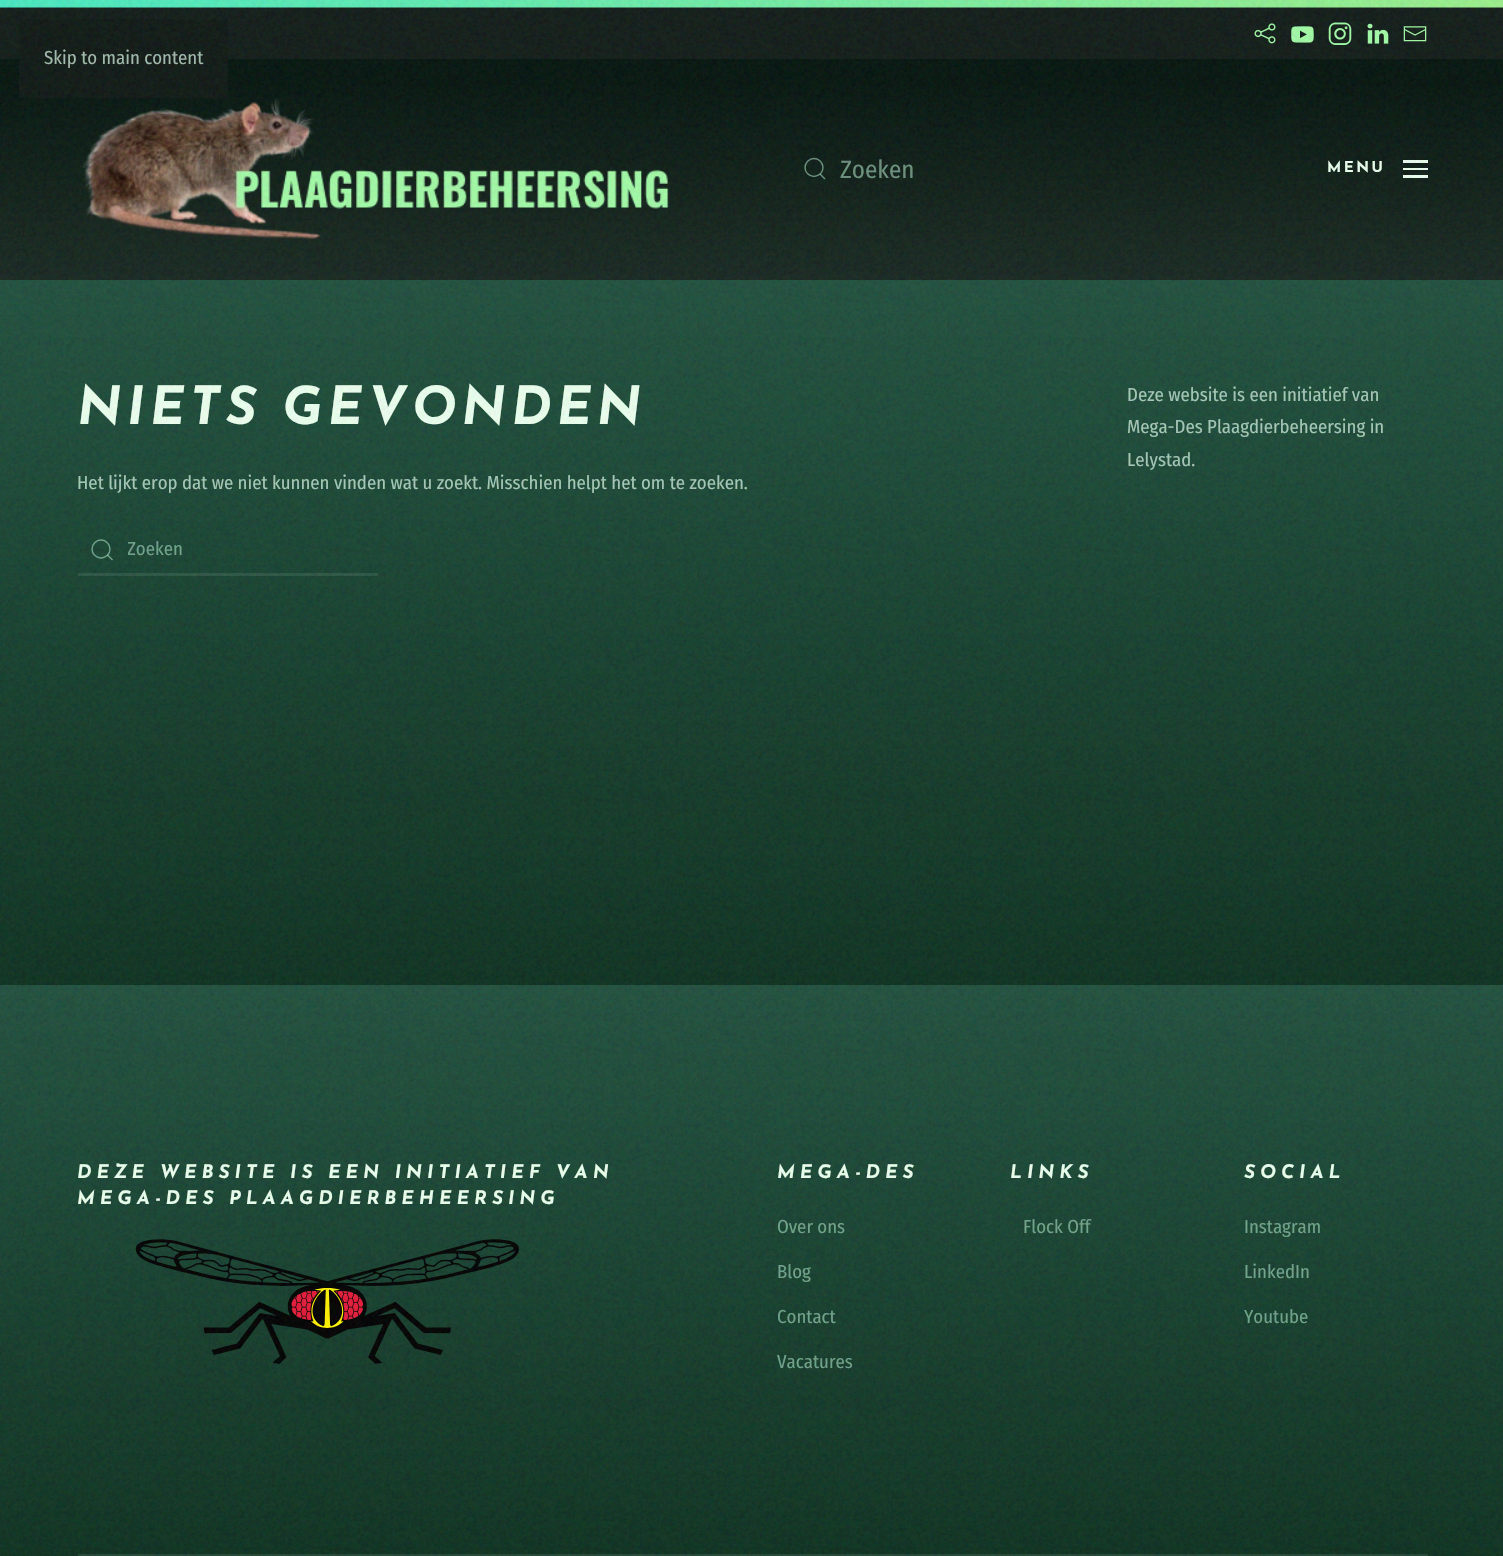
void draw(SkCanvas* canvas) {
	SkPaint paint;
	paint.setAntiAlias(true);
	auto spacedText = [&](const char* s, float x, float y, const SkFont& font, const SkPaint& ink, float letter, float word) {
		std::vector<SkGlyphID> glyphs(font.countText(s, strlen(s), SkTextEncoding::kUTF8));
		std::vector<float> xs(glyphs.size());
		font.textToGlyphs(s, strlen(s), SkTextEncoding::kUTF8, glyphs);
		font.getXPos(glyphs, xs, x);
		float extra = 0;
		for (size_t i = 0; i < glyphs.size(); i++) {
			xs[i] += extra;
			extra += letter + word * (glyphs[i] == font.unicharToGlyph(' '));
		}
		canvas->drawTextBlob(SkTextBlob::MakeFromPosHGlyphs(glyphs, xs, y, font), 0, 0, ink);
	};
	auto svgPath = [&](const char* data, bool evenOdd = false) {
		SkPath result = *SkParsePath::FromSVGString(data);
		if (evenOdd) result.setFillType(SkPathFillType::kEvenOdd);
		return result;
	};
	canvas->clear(0xff111d19);
	paint.setColor(0xff0f1a16);
	canvas->drawRect(SkRect::MakeXYWH(0, 8, 1503, 51), paint);
	paint.setColor(0xff0d1713);
	canvas->drawRect(SkRect::MakeXYWH(19, 19, 209, 40), paint);
	{
		const SkColor colors[] = {0xff03130c, 0xff16261f};
		const float stops[] = {0.1, 1};
		const SkPoint ends[] = {{752, 59}, {752, 280}};
		paint.setShader(SkGradientShader::MakeLinear(ends, colors, stops, 2, SkTileMode::kClamp));
		paint.setAlpha(255);
	}
	canvas->drawRect(SkRect::MakeXYWH(0, 59, 1503, 221), paint);
	{
		const SkColor colors[] = {0xff0d1713, 0xff0d1814};
		const float stops[] = {0.1, 1};
		const SkPoint ends[] = {{752, 59}, {752, 280}};
		paint.setShader(SkGradientShader::MakeLinear(ends, colors, stops, 2, SkTileMode::kClamp));
		paint.setAlpha(255);
	}
	canvas->drawRect(SkRect::MakeXYWH(19, 59, 209, 39), paint);
	SkFont f1(fontMgr->matchFamilyStyle("Fira Sans Condensed", SkFontStyle::Normal()), 18.75);
	f1.setSubpixel(true);
	paint.setShader(nullptr);
	paint.setColor(0xffa0b9ab);
	canvas->drawString("Skip to main content", 44, 64, f1, paint);
	canvas->drawImageRect(SkImages::DeferredFromEncodedData(SkData::MakeFromFileName("img2.png")), SkRect::MakeXYWH(0, 0, 1503, 8), SkSamplingOptions());
	canvas->drawImageRect(SkImages::DeferredFromEncodedData(SkData::MakeFromFileName("img3.png")), SkRect::MakeXYWH(1254, 23, 22, 21), SkSamplingOptions());
	canvas->drawImageRect(SkImages::DeferredFromEncodedData(SkData::MakeFromFileName("img4.png")), SkRect::MakeXYWH(1291, 26, 23, 17), SkSamplingOptions());
	canvas->drawImageRect(SkImages::DeferredFromEncodedData(SkData::MakeFromFileName("img5.png")), SkRect::MakeXYWH(1328, 22, 24, 23), SkSamplingOptions());
	canvas->drawImageRect(SkImages::DeferredFromEncodedData(SkData::MakeFromFileName("img6.png")), SkRect::MakeXYWH(1367, 23, 22, 21), SkSamplingOptions());
	canvas->drawImageRect(SkImages::DeferredFromEncodedData(SkData::MakeFromFileName("img7.png")), SkRect::MakeXYWH(1403, 26, 24, 16), SkSamplingOptions());
	canvas->drawImageRect(SkImages::DeferredFromEncodedData(SkData::MakeFromFileName("img8.png")), SkRect::MakeXYWH(82, 98, 587, 142), SkSamplingOptions());
	paint.setStroke(true);
	paint.setStrokeWidth(1.4);
	paint.setColor(0xff698f7c);
	canvas->drawCircle(814, 167.5, 9, paint);
	paint.setColor(0x8ab9f2d5);
	canvas->drawPath(svgPath("M820 174L825 179Z"), paint);
	SkFont f2(fontMgr->matchFamilyStyle("Fira Sans Condensed", SkFontStyle::Normal()), 25);
	f2.setSubpixel(true);
	paint.setStroke(false);
	paint.setColor(0xff698f7c);
	canvas->drawString("Zoeken", 840, 178, f2, paint);
	SkFont f3(fontMgr->matchFamilyStyle("Josefin Sans", SkFontStyle(100, SkFontStyle::kNormal_Width, SkFontStyle::kUpright_Slant)), 15);
	f3.setSubpixel(true);
	paint.setColor(0xffeaffed);
	spacedText("MENU", 1327, 172, f3, paint, 2.5, 0);
	canvas->drawRect(SkRect::MakeXYWH(1403, 160, 25, 3), paint);
	canvas->drawRect(SkRect::MakeXYWH(1403, 168, 25, 2), paint);
	canvas->drawRect(SkRect::MakeXYWH(1403, 175, 25, 3), paint);
	{
		const SkColor colors[] = {0xff1e4e3c, 0xff0b2f1e};
		const float stops[] = {0, 1};
		const SkPoint ends[] = {{752, 280}, {752, 985}};
		paint.setShader(SkGradientShader::MakeLinear(ends, colors, stops, 2, SkTileMode::kClamp));
		paint.setAlpha(255);
	}
	canvas->drawRect(SkRect::MakeXYWH(0, 280, 1503, 705), paint);
	SkFont f4(fontMgr->matchFamilyStyle("Josefin Sans", SkFontStyle(100, SkFontStyle::kNormal_Width, SkFontStyle::kItalic_Slant)), 52.5);
	f4.setSubpixel(true);
	paint.setShader(nullptr);
	paint.setColor(0xffeaffed);
	spacedText("NIETS GEVONDEN", 77, 424, f4, paint, 5, 0);
	paint.setColor(0xffa3c7b5);
	canvas->drawString("Het lijkt erop dat we niet kunnen vinden wat u zoekt. Misschien helpt het om te zoeken.", 77, 489, f1, paint);
	paint.setStroke(true);
	paint.setColor(0xff6ea189);
	canvas->drawCircle(101, 549, 9, paint);
	paint.setColor(0x8ab9f2d5);
	canvas->drawPath(svgPath("M107.5 555L112.5 560Z"), paint);
	paint.setStroke(false);
	paint.setColor(0xff2a5442);
	canvas->drawRect(SkRect::MakeXYWH(78, 573, 300, 3), paint);
	canvas->save();
	canvas->clipRect(SkRect::MakeXYWH(128, 538, 225, 22));
	paint.setColor(0xff6ea189);
	canvas->drawString("Zoeken", 127, 555, f1, paint);
	canvas->restore();
	paint.setColor(0xffa3c7b5);
	canvas->drawString("Deze website is een initiatief van", 1127, 401, f1, paint);
	canvas->drawString("Mega-Des Plaagdierbeheersing in", 1127, 433, f1, paint);
	canvas->drawString("Lelystad.", 1127, 466, f1, paint);
	{
		const SkColor colors[] = {0xff1e4e3c, 0xff0b2f1e};
		const float stops[] = {0, 1};
		const SkPoint ends[] = {{752, 985}, {752, 1556}};
		paint.setShader(SkGradientShader::MakeLinear(ends, colors, stops, 2, SkTileMode::kClamp));
		paint.setAlpha(255);
	}
	canvas->drawRect(SkRect::MakeXYWH(0, 985, 1503, 571), paint);
	SkFont f5(fontMgr->matchFamilyStyle("Josefin Sans", SkFontStyle(100, SkFontStyle::kNormal_Width, SkFontStyle::kItalic_Slant)), 18.75);
	f5.setSubpixel(true);
	paint.setShader(nullptr);
	paint.setColor(0xffeaffed);
	spacedText("DEZE WEBSITE IS EEN INITIATIEF VAN", 77, 1178, f5, paint, 5, 0);
	spacedText("MEGA-DES PLAAGDIERBEHEERSING", 77, 1204, f5, paint, 5, 0);
	canvas->drawImageRect(SkImages::DeferredFromEncodedData(SkData::MakeFromFileName("img9.png")), SkRect::MakeXYWH(135, 1239, 384, 125), SkSamplingOptions());
	spacedText("MEGA-DES", 777, 1178, f5, paint, 5, 0);
	paint.setColor(0xff6ea189);
	canvas->drawString("Over ons", 777, 1233, f1, paint);
	canvas->drawString("Blog", 777, 1278, f1, paint);
	canvas->drawString("Contact", 777, 1323, f1, paint);
	canvas->drawString("Vacatures", 777, 1368, f1, paint);
	paint.setColor(0xffeaffed);
	spacedText("LINKS", 1010, 1178, f5, paint, 5, 0);
	paint.setColor(0xff6ea189);
	canvas->drawString("Flock Off", 1023, 1233, f1, paint);
	paint.setColor(0xffeaffed);
	spacedText("SOCIAL", 1244, 1178, f5, paint, 5, 0);
	paint.setColor(0xff6ea189);
	canvas->drawString("Instagram", 1244, 1233, f1, paint);
	canvas->drawString("LinkedIn", 1244, 1278, f1, paint);
	canvas->drawString("Youtube", 1244, 1323, f1, paint);
	paint.setColor(0xff204433);
	canvas->drawRect(SkRect::MakeXYWH(78, 1554, 1350, 2), paint);
	canvas->drawImageRect(SkImages::DeferredFromEncodedData(SkData::MakeFromFileName("img1.png")), SkRect::MakeXYWH(0, 0, 1503, 1556), SkSamplingOptions());
}
